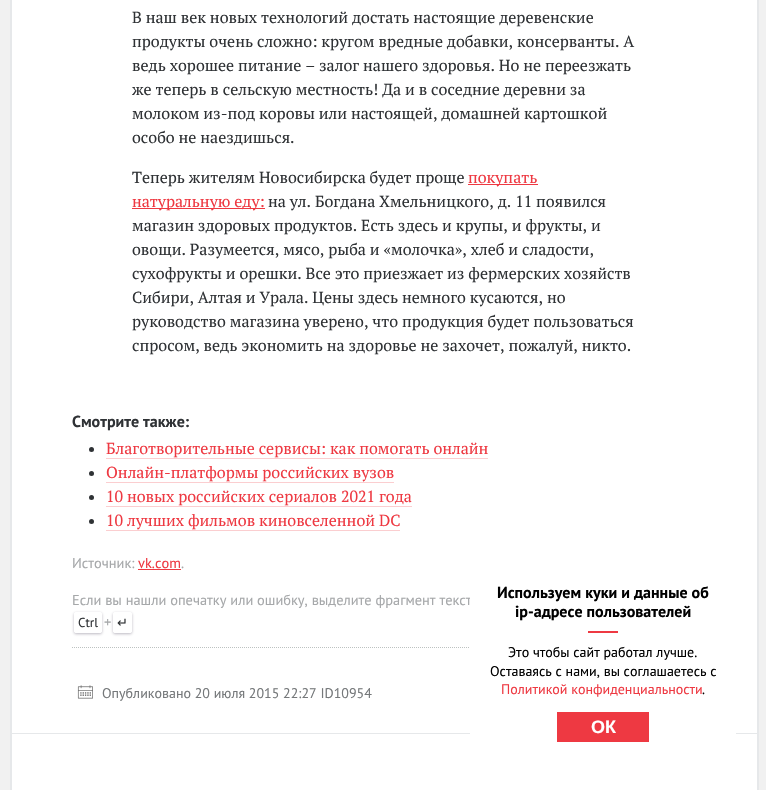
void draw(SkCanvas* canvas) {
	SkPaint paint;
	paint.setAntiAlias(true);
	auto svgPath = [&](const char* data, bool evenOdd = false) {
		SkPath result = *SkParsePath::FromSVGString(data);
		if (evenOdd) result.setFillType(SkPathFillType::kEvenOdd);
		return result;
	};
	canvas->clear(0xfff1f1f1);
	paint.setColor(0xffffffff);
	canvas->drawRect(SkRect::MakeXYWH(12, 0, 745, 790), paint);
	paint.setStroke(true);
	paint.setStrokeWidth(1);
	paint.setColor(0xffe6e8ea);
	canvas->drawRect(SkRect::MakeXYWH(10.5, -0.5, 748, 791), paint);
	canvas->drawRect(SkRect::MakeXYWH(11.5, -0.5, 746, 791), paint);
	SkFont f1(fontMgr->matchFamilyStyle("PT Serif", SkFontStyle::Normal()), 16);
	f1.setSubpixel(true);
	paint.setStroke(false);
	paint.setColor(0xff2f3235);
	canvas->drawString("В наш век новых технологий достать настоящие деревенские", 132, 23, f1, paint);
	canvas->drawString("продукты очень сложно: кругом вредные добавки, консерванты. А", 132, 47, f1, paint);
	canvas->drawString("ведь хорошее питание – залог нашего здоровья. Но не переезжать", 132, 71, f1, paint);
	canvas->drawString("же теперь в сельскую местность! Да и в соседние деревни за", 132, 95, f1, paint);
	canvas->drawString("молоком из-под коровы или настоящей, домашней картошкой", 132, 119, f1, paint);
	canvas->drawString("особо не наездишься.", 132, 143, f1, paint);
	canvas->drawString("Теперь жителям Новосибирска будет проще", 132, 183, f1, paint);
	paint.setColor(0xffee3942);
	canvas->drawRect(SkRect::MakeXYWH(468, 184, 70, 1), paint);
	canvas->drawString("покупать", 468, 183, f1, paint);
	canvas->drawRect(SkRect::MakeXYWH(132, 208, 133, 1), paint);
	canvas->drawString("натуральную еду:", 132, 207, f1, paint);
	paint.setColor(0xff2f3235);
	canvas->drawString("на ул. Богдана Хмельницкого, д. 11 появился", 268, 207, f1, paint);
	canvas->drawString("магазин здоровых продуктов. Есть здесь и крупы, и фрукты, и", 132, 231, f1, paint);
	canvas->drawString("овощи. Разумеется, мясо, рыба и «молочка», хлеб и сладости,", 132, 255, f1, paint);
	canvas->drawString("сухофрукты и орешки. Все это приезжает из фермерских хозяйств", 132, 279, f1, paint);
	canvas->drawString("Сибири, Алтая и Урала. Цены здесь немного кусаются, но", 132, 303, f1, paint);
	canvas->drawString("руководство магазина уверено, что продукция будет пользоваться", 132, 327, f1, paint);
	canvas->drawString("спросом, ведь экономить на здоровье не захочет, пожалуй, никто.", 132, 351, f1, paint);
	SkFont f2(fontMgr->matchFamilyStyle("PT Sans", SkFontStyle::Bold()), 16);
	f2.setSubpixel(true);
	canvas->drawString("Смотрите также:", 72, 427, f2, paint);
	canvas->drawCircle(91.5, 449.5, 2.5, paint);
	paint.setColor(0xffee3942);
	canvas->drawString("Благотворительные сервисы: как помогать онлайн", 106, 454, f1, paint);
	paint.setColor(0xfffbced0);
	canvas->drawRect(SkRect::MakeXYWH(106, 458, 382, 1), paint);
	paint.setColor(0xff2f3235);
	canvas->drawCircle(91.5, 473.5, 2.5, paint);
	paint.setColor(0xffee3942);
	canvas->drawString("Онлайн-платформы российских вузов", 106, 478, f1, paint);
	paint.setColor(0xfffbced0);
	canvas->drawRect(SkRect::MakeXYWH(106, 482, 288, 1), paint);
	paint.setColor(0xff2f3235);
	canvas->drawCircle(91.5, 497.5, 2.5, paint);
	paint.setColor(0xffee3942);
	canvas->drawString("10 новых российских сериалов 2021 года", 106, 502, f1, paint);
	paint.setColor(0xfffbced0);
	canvas->drawRect(SkRect::MakeXYWH(106, 506, 306, 1), paint);
	paint.setColor(0xff2f3235);
	canvas->drawCircle(91.5, 521.5, 2.5, paint);
	paint.setColor(0xffee3942);
	canvas->drawString("10 лучших фильмов киновселенной DC", 106, 526, f1, paint);
	paint.setColor(0xfffbced0);
	canvas->drawRect(SkRect::MakeXYWH(106, 530, 294, 1), paint);
	SkFont f3(fontMgr->matchFamilyStyle("PT Sans", SkFontStyle::Normal()), 14.4);
	f3.setSubpixel(true);
	paint.setColor(0xffa6a8aa);
	canvas->drawString("Источник:", 72, 568, f3, paint);
	paint.setColor(0xffee3942);
	canvas->drawString("vk.com", 138, 568, f3, paint);
	canvas->drawRect(SkRect::MakeXYWH(138, 569, 43, 1), paint);
	paint.setColor(0xffa6a8aa);
	canvas->drawString(".", 181, 568, f3, paint);
	canvas->drawString("Если вы нашли опечатку или ошибку, выделите фрагмент текст", 72, 605, f3, paint);
	canvas->save();
	canvas->clipPath(svgPath("M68 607H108V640H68ZM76 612H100C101 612 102 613 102 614V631C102 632 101 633 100 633H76C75 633 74 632 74 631V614C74 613 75 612 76 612Z", true), true);
	paint.setColor(0x4d1e1432);
	paint.setMaskFilter(SkMaskFilter::MakeBlur(kNormal_SkBlurStyle, 1.5));
	canvas->drawRoundRect(SkRect::MakeXYWH(74, 613, 28, 21), 2, 2, paint);
	paint.setMaskFilter(nullptr);
	canvas->restore();
	paint.setStroke(true);
	paint.setColor(0xffffffff);
	canvas->drawRoundRect(SkRect::MakeXYWH(74.5, 612.5, 27, 20), 1.5, 1.5, paint);
	SkFont f4(fontMgr->matchFamilyStyle("PT Sans", SkFontStyle::Normal()), 13);
	f4.setSubpixel(true);
	paint.setStroke(false);
	paint.setColor(0xff2f3235);
	canvas->drawString("Ctrl", 78, 627, f4, paint);
	paint.setColor(0xffa6a8aa);
	canvas->drawString("+", 104, 627, f3, paint);
	canvas->save();
	canvas->clipPath(svgPath("M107 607H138V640H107ZM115 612H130C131 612 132 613 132 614V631C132 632 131 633 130 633H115C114 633 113 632 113 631V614C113 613 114 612 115 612Z", true), true);
	paint.setColor(0x4d1e1432);
	paint.setMaskFilter(SkMaskFilter::MakeBlur(kNormal_SkBlurStyle, 1.5));
	canvas->drawRoundRect(SkRect::MakeXYWH(113, 613, 19, 21), 2, 2, paint);
	paint.setMaskFilter(nullptr);
	canvas->restore();
	paint.setStroke(true);
	paint.setColor(0xffffffff);
	canvas->drawRoundRect(SkRect::MakeXYWH(113.5, 612.5, 18, 20), 1.5, 1.5, paint);
	SkFont f5(fontMgr->matchFamilyStyle("DejaVu Sans", SkFontStyle::Normal()), 13);
	f5.setSubpixel(true);
	paint.setStroke(false);
	paint.setColor(0xff2f3235);
	canvas->drawString("↵", 117, 627, f5, paint);
	paint.setStroke(true);
	paint.setColor(0xffbdc2c1);
	paint.setPathEffect(SkDashPathEffect::Make({{1, 1}}, 0));
	canvas->drawPath(svgPath("M72 647.5H697"), paint);
	paint.setPathEffect(nullptr);
	canvas->drawImageRect(SkImages::DeferredFromEncodedData(SkData::MakeFromFileName("img1.png")), SkRect::MakeXYWH(77, 685, 16, 14), SkSamplingOptions());
	SkFont f6(fontMgr->matchFamilyStyle("PT Sans", SkFontStyle::Normal()), 14);
	f6.setSubpixel(true);
	paint.setStroke(false);
	paint.setColor(0xff75787a);
	canvas->drawString("Опубликовано 20 июля 2015 22:27 ID10954", 102, 698, f6, paint);
	paint.setColor(0xffe6e8ea);
	canvas->drawRect(SkRect::MakeXYWH(12, 733, 745, 1), paint);
	paint.setColor(0xffffffff);
	canvas->drawRect(SkRect::MakeXYWH(470, 597, 266, 137), paint);
	paint.setColor(0xff000000);
	canvas->drawString("Используем куки и данные об", 497, 598, f2, paint);
	canvas->drawString("ip-адресе пользователей", 515, 617, f2, paint);
	paint.setColor(0xffee3942);
	canvas->drawRect(SkRect::MakeXYWH(588, 631, 30, 2), paint);
	paint.setColor(0xff000000);
	canvas->drawString("Это чтобы сайт работал лучше.", 508, 657, f6, paint);
	canvas->drawString("Оставаясь с нами, вы соглашаетесь с", 490, 676, f6, paint);
	paint.setColor(0xffee3942);
	canvas->drawString("Политикой конфиденциальности", 501, 694, f6, paint);
	paint.setColor(0xff000000);
	canvas->drawString(".", 702, 694, f6, paint);
	paint.setColor(0xffee3942);
	canvas->drawRect(SkRect::MakeXYWH(557, 712, 92, 30), paint);
	SkFont f7(fontMgr->matchFamilyStyle("Liberation Sans", SkFontStyle::Bold()), 18);
	f7.setSubpixel(true);
	paint.setColor(0xffffffff);
	canvas->drawString("ОК", 591, 733, f7, paint);
}
